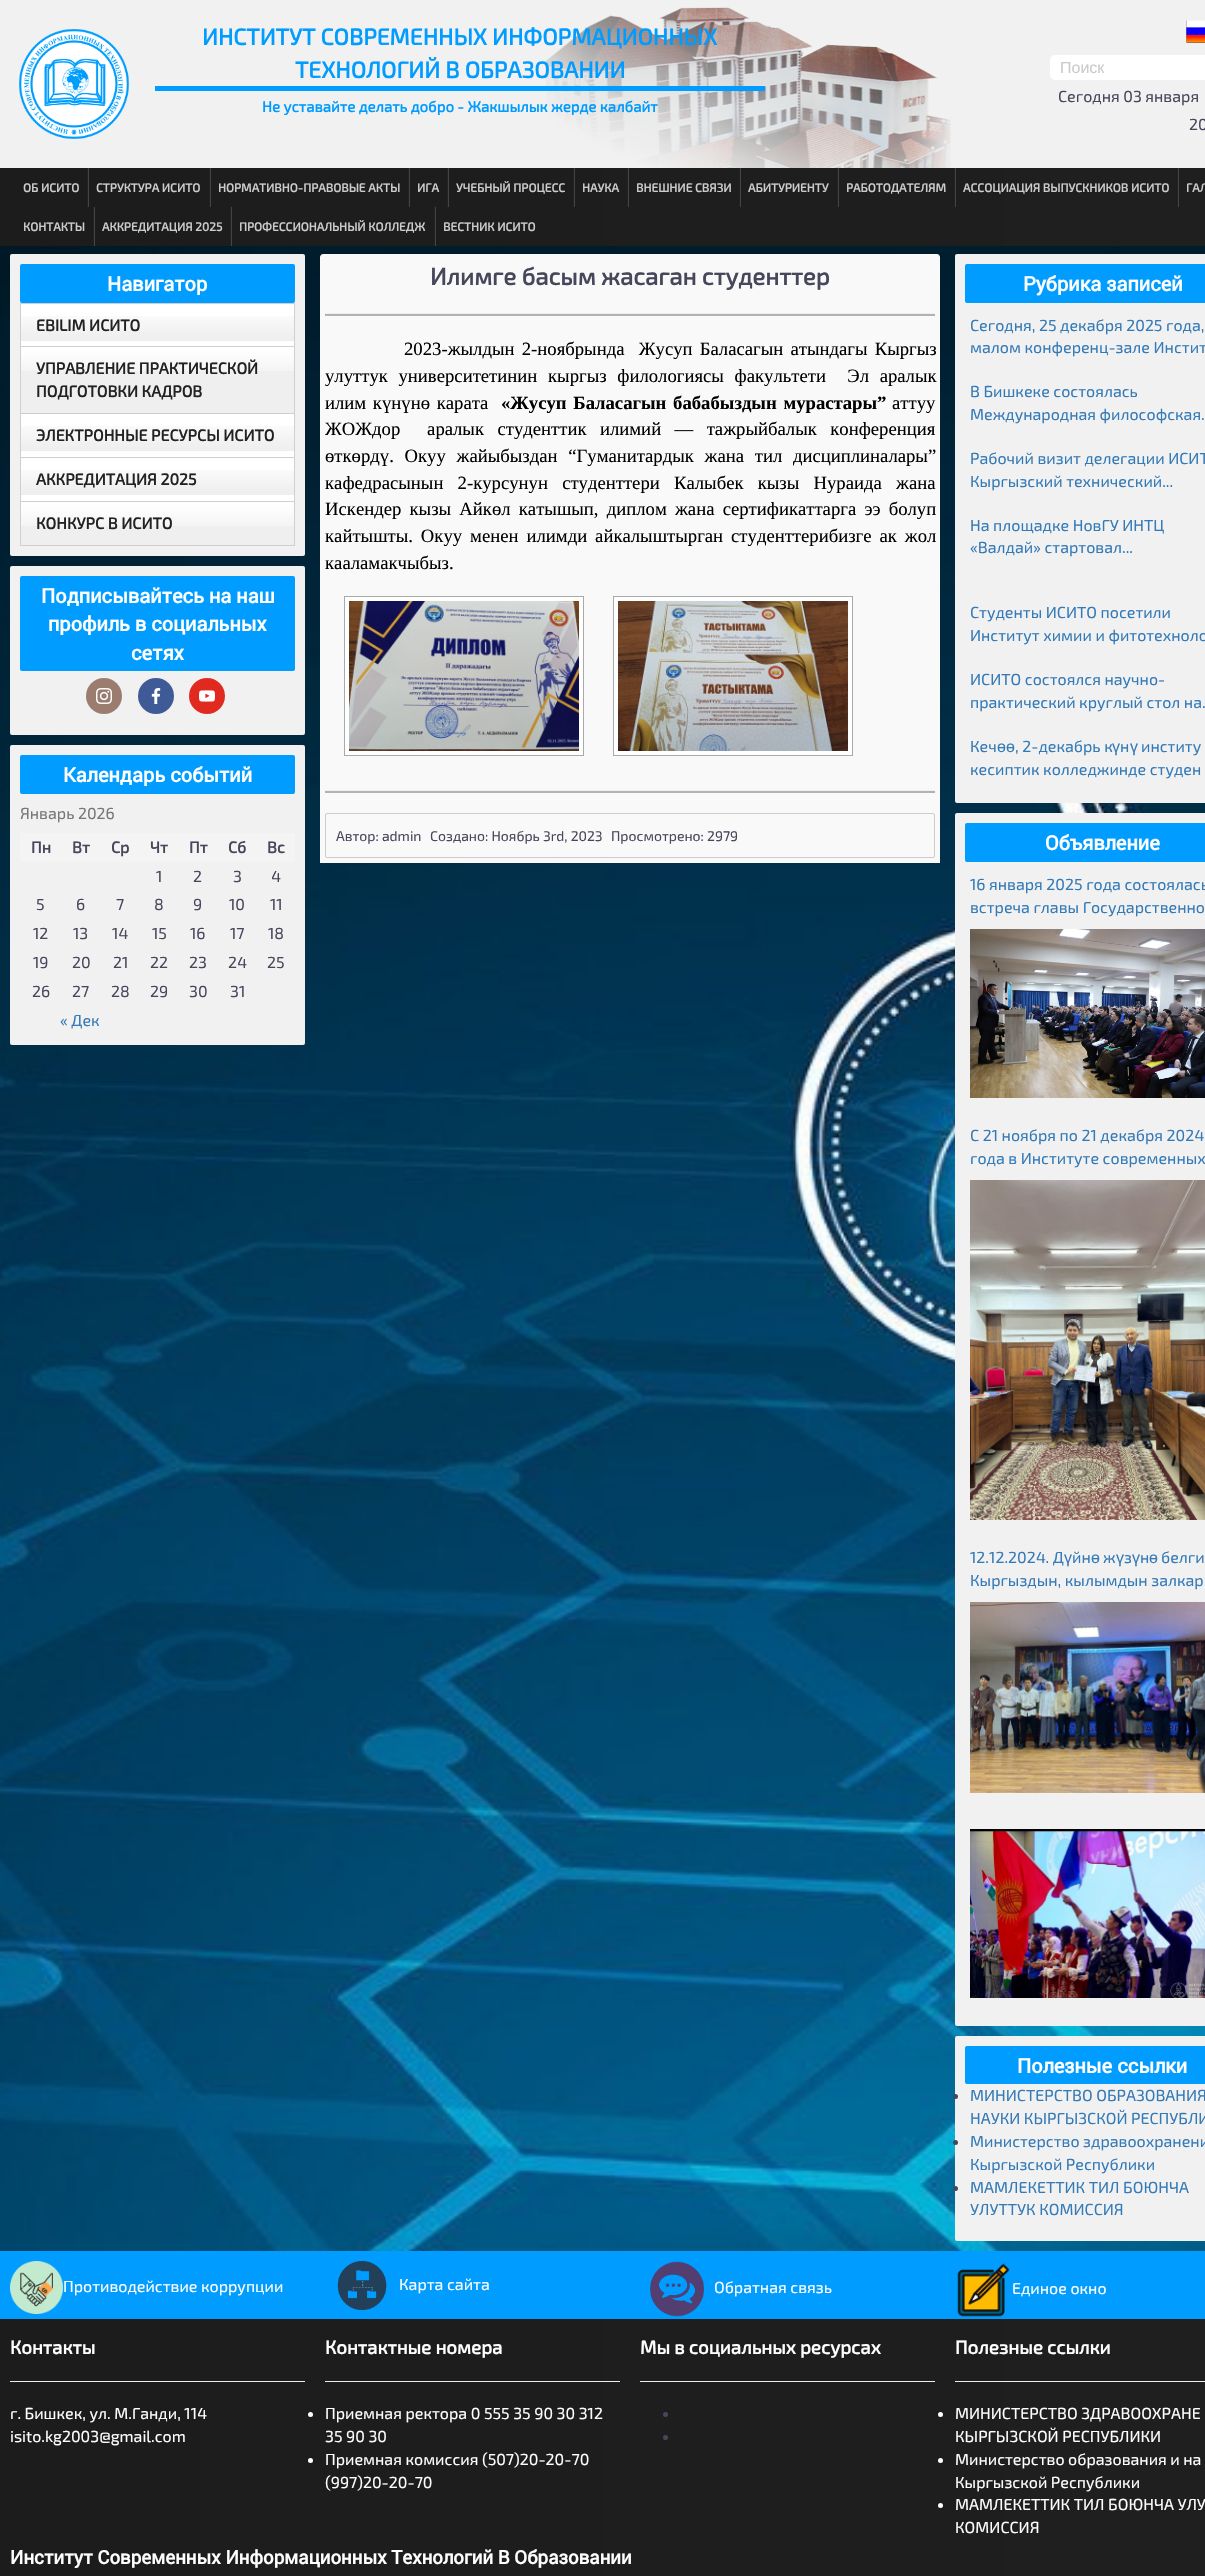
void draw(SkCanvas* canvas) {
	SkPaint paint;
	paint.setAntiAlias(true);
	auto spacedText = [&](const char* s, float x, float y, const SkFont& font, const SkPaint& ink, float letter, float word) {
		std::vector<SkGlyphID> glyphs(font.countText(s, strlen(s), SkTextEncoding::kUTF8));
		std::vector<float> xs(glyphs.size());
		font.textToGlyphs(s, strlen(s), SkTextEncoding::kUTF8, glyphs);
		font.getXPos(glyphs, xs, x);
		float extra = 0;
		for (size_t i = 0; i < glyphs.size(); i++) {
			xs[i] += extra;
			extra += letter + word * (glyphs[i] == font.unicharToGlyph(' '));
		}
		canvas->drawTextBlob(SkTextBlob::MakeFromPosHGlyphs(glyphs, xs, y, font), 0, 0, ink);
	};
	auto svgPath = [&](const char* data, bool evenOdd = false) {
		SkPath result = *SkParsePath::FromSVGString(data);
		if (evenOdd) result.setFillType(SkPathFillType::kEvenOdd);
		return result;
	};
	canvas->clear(0xffffffff);
	paint.setColor(0xfff1f1f1);
	canvas->drawRect(SkRect::MakeXYWH(0, 0, 1205, 168), paint);
	canvas->drawImageRect(SkImages::DeferredFromEncodedData(SkData::MakeFromFileName("img1.png")), SkRect::MakeXYWH(545, 7, 406, 161), SkSamplingOptions());
	canvas->drawImageRect(SkImages::DeferredFromEncodedData(SkData::MakeFromFileName("img2.png")), SkRect::MakeXYWH(19, 29, 110, 110), SkSamplingOptions());
	SkFont f1(fontMgr->matchFamilyStyle("Exo 2", SkFontStyle::Bold()), 23);
	f1.setSubpixel(true);
	paint.setColor(0xff009cff);
	canvas->drawString("ИНСТИТУТ СОВРЕМЕННЫХ ИНФОРМАЦИОННЫХ", 202, 45, f1, paint);
	canvas->drawString("ТЕХНОЛОГИЙ В ОБРАЗОВАНИИ", 295, 78, f1, paint);
	canvas->drawRect(SkRect::MakeXYWH(155, 86, 610, 5), paint);
	SkFont f2(fontMgr->matchFamilyStyle("Exo 2", SkFontStyle::Bold()), 15);
	f2.setSubpixel(true);
	canvas->drawString("Не уставайте делать добро - Жакшылык жерде калбайт", 262, 112, f2, paint);
	canvas->drawImageRect(SkImages::DeferredFromEncodedData(SkData::MakeFromFileName("img3.png")), SkRect::MakeXYWH(1186, 20, 19, 23), SkSamplingOptions());
	paint.setColor(0xffffffff);
	canvas->drawRoundRect(SkRect::MakeXYWH(1050, 55, 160, 25), 5, 5, paint);
	SkFont f3(fontMgr->matchFamilyStyle("Liberation Sans", SkFontStyle::Normal()), 16);
	f3.setSubpixel(true);
	paint.setColor(0xffcccccc);
	canvas->drawString("Поиск", 1060, 73, f3, paint);
	SkFont f4(fontMgr->matchFamilyStyle("Exo 2", SkFontStyle::Normal()), 16);
	f4.setSubpixel(true);
	paint.setColor(0xff47475c);
	canvas->drawString("Сегодня 03 января", 1058, 102, f4, paint);
	canvas->drawString("20", 1189, 130, f4, paint);
	{
		const SkColor colors[] = {0xff1c1c1c, 0xff1f1f1f};
		const float stops[] = {0, 1};
		const SkPoint ends[] = {{0, 207}, {1205, 207}};
		paint.setShader(SkGradientShader::MakeLinear(ends, colors, stops, 2, SkTileMode::kClamp));
		paint.setAlpha(255);
	}
	canvas->drawRect(SkRect::MakeXYWH(0, 168, 1205, 78), paint);
	paint.setShader(nullptr);
	paint.setColor(0xff444444);
	canvas->drawRect(SkRect::MakeXYWH(88, 168, 1, 39), paint);
	paint.setColor(0xff222222);
	canvas->drawRect(SkRect::MakeXYWH(87, 168, 1, 39), paint);
	SkFont f5(fontMgr->matchFamilyStyle("Exo 2", SkFontStyle::Bold()), 12);
	f5.setSubpixel(true);
	paint.setColor(0xffcccccc);
	canvas->drawString("ОБ ИСИТО", 23, 192, f5, paint);
	paint.setColor(0xff444444);
	canvas->drawRect(SkRect::MakeXYWH(210, 168, 1, 39), paint);
	paint.setColor(0xff222222);
	canvas->drawRect(SkRect::MakeXYWH(209, 168, 1, 39), paint);
	paint.setColor(0xffcccccc);
	canvas->drawString("СТРУКТУРА ИСИТО", 96, 192, f5, paint);
	paint.setColor(0xff444444);
	canvas->drawRect(SkRect::MakeXYWH(409, 168, 1, 39), paint);
	paint.setColor(0xff222222);
	canvas->drawRect(SkRect::MakeXYWH(408, 168, 1, 39), paint);
	paint.setColor(0xffcccccc);
	canvas->drawString("НОРМАТИВНО-ПРАВОВЫЕ АКТЫ", 218, 192, f5, paint);
	paint.setColor(0xff444444);
	canvas->drawRect(SkRect::MakeXYWH(448, 168, 1, 39), paint);
	paint.setColor(0xff222222);
	canvas->drawRect(SkRect::MakeXYWH(447, 168, 1, 39), paint);
	paint.setColor(0xffcccccc);
	canvas->drawString("ИГА", 417, 192, f5, paint);
	paint.setColor(0xff444444);
	canvas->drawRect(SkRect::MakeXYWH(574, 168, 1, 39), paint);
	paint.setColor(0xff222222);
	canvas->drawRect(SkRect::MakeXYWH(573, 168, 1, 39), paint);
	paint.setColor(0xffcccccc);
	canvas->drawString("УЧЕБНЫЙ ПРОЦЕСС", 456, 192, f5, paint);
	paint.setColor(0xff444444);
	canvas->drawRect(SkRect::MakeXYWH(628, 168, 1, 39), paint);
	paint.setColor(0xff222222);
	canvas->drawRect(SkRect::MakeXYWH(627, 168, 1, 39), paint);
	paint.setColor(0xffcccccc);
	canvas->drawString("НАУКА", 582, 192, f5, paint);
	paint.setColor(0xff444444);
	canvas->drawRect(SkRect::MakeXYWH(740, 168, 1, 39), paint);
	paint.setColor(0xff222222);
	canvas->drawRect(SkRect::MakeXYWH(739, 168, 1, 39), paint);
	paint.setColor(0xffcccccc);
	canvas->drawString("ВНЕШНИЕ СВЯЗИ", 636, 192, f5, paint);
	paint.setColor(0xff444444);
	canvas->drawRect(SkRect::MakeXYWH(838, 168, 1, 39), paint);
	paint.setColor(0xff222222);
	canvas->drawRect(SkRect::MakeXYWH(837, 168, 1, 39), paint);
	paint.setColor(0xffcccccc);
	canvas->drawString("АБИТУРИЕНТУ", 748, 192, f5, paint);
	paint.setColor(0xff444444);
	canvas->drawRect(SkRect::MakeXYWH(955, 168, 1, 39), paint);
	paint.setColor(0xff222222);
	canvas->drawRect(SkRect::MakeXYWH(954, 168, 1, 39), paint);
	paint.setColor(0xffcccccc);
	canvas->drawString("РАБОТОДАТЕЛЯМ", 846, 192, f5, paint);
	paint.setColor(0xff444444);
	canvas->drawRect(SkRect::MakeXYWH(1178, 168, 1, 39), paint);
	paint.setColor(0xff222222);
	canvas->drawRect(SkRect::MakeXYWH(1177, 168, 1, 39), paint);
	paint.setColor(0xffcccccc);
	canvas->drawString("АССОЦИАЦИЯ ВЫПУСКНИКОВ ИСИТО", 963, 192, f5, paint);
	canvas->drawString("ГАЛ", 1186, 192, f5, paint);
	paint.setColor(0xff444444);
	canvas->drawRect(SkRect::MakeXYWH(94, 207, 1, 39), paint);
	paint.setColor(0xff222222);
	canvas->drawRect(SkRect::MakeXYWH(93, 207, 1, 39), paint);
	paint.setColor(0xffcccccc);
	canvas->drawString("КОНТАКТЫ", 23, 231, f5, paint);
	paint.setColor(0xff444444);
	canvas->drawRect(SkRect::MakeXYWH(231, 207, 1, 39), paint);
	paint.setColor(0xff222222);
	canvas->drawRect(SkRect::MakeXYWH(230, 207, 1, 39), paint);
	paint.setColor(0xffcccccc);
	canvas->drawString("АККРЕДИТАЦИЯ 2025", 102, 231, f5, paint);
	paint.setColor(0xff444444);
	canvas->drawRect(SkRect::MakeXYWH(435, 207, 1, 39), paint);
	paint.setColor(0xff222222);
	canvas->drawRect(SkRect::MakeXYWH(434, 207, 1, 39), paint);
	paint.setColor(0xffcccccc);
	canvas->drawString("ПРОФЕССИОНАЛЬНЫЙ КОЛЛЕДЖ", 239, 231, f5, paint);
	canvas->drawString("ВЕСТНИК ИСИТО", 443, 231, f5, paint);
	canvas->drawImageRect(SkImages::DeferredFromEncodedData(SkData::MakeFromFileName("img4.png")), SkRect::MakeXYWH(0, 246, 1205, 2005), SkSamplingOptions());
	paint.setColor(0xfff2f1f1);
	canvas->drawRoundRect(SkRect::MakeXYWH(10, 254, 295, 302), 2, 2, paint);
	paint.setColor(0xff009cff);
	canvas->drawRoundRect(SkRect::MakeXYWH(20, 264, 275, 39), 2, 2, paint);
	SkFont f6(fontMgr->matchFamilyStyle("Roboto", SkFontStyle::Bold()), 20);
	f6.setSubpixel(true);
	paint.setColor(0xffffffff);
	canvas->drawString("Навигатор", 107, 291, f6, paint);
	paint.setColor(0xffcfcfcf);
	canvas->drawRect(SkRect::MakeXYWH(20, 303, 275, 1), paint);
	canvas->drawRect(SkRect::MakeXYWH(294, 303, 1, 243), paint);
	canvas->drawRect(SkRect::MakeXYWH(20, 303, 1, 243), paint);
	paint.setColor(0xffffffff);
	canvas->drawRect(SkRect::MakeXYWH(21, 304, 273, 42), paint);
	canvas->drawImageRect(SkImages::DeferredFromEncodedData(SkData::MakeFromFileName("img5.png")), SkRect::MakeXYWH(21, 316, 273, 25), SkSamplingOptions());
	paint.setColor(0xffcfcfcf);
	canvas->drawRect(SkRect::MakeXYWH(21, 346, 273, 1), paint);
	SkFont f7(fontMgr->matchFamilyStyle("Exo 2", SkFontStyle::Bold()), 16);
	f7.setSubpixel(true);
	paint.setColor(0xff222222);
	canvas->drawString("EBILIM ИСИТО", 36, 331, f7, paint);
	paint.setColor(0xffefefef);
	canvas->drawRect(SkRect::MakeXYWH(21, 371, 273, 42), paint);
	canvas->drawImageRect(SkImages::DeferredFromEncodedData(SkData::MakeFromFileName("img6.png")), SkRect::MakeXYWH(21, 347, 273, 24), SkSamplingOptions());
	paint.setColor(0xffcfcfcf);
	canvas->drawRect(SkRect::MakeXYWH(21, 413, 273, 1), paint);
	paint.setColor(0xff222222);
	canvas->drawString("УПРАВЛЕНИЕ ПРАКТИЧЕСКОЙ", 36, 374, f7, paint);
	canvas->drawString("ПОДГОТОВКИ КАДРОВ", 36, 397, f7, paint);
	paint.setColor(0xffffffff);
	canvas->drawRect(SkRect::MakeXYWH(21, 414, 273, 43), paint);
	canvas->drawImageRect(SkImages::DeferredFromEncodedData(SkData::MakeFromFileName("img5.png")), SkRect::MakeXYWH(21, 426, 273, 25), SkSamplingOptions());
	paint.setColor(0xffcfcfcf);
	canvas->drawRect(SkRect::MakeXYWH(21, 457, 273, 1), paint);
	paint.setColor(0xff222222);
	canvas->drawString("ЭЛЕКТРОННЫЕ РЕСУРСЫ ИСИТО", 36, 441, f7, paint);
	paint.setColor(0xffffffff);
	canvas->drawRect(SkRect::MakeXYWH(21, 458, 273, 43), paint);
	canvas->drawImageRect(SkImages::DeferredFromEncodedData(SkData::MakeFromFileName("img5.png")), SkRect::MakeXYWH(21, 470, 273, 25), SkSamplingOptions());
	paint.setColor(0xffcfcfcf);
	canvas->drawRect(SkRect::MakeXYWH(21, 501, 273, 1), paint);
	paint.setColor(0xff222222);
	canvas->drawString("АККРЕДИТАЦИЯ 2025", 36, 485, f7, paint);
	paint.setColor(0xffefefef);
	canvas->drawRect(SkRect::MakeXYWH(21, 526, 273, 19), paint);
	canvas->drawImageRect(SkImages::DeferredFromEncodedData(SkData::MakeFromFileName("img6.png")), SkRect::MakeXYWH(21, 502, 273, 24), SkSamplingOptions());
	paint.setColor(0xffcfcfcf);
	canvas->drawRect(SkRect::MakeXYWH(21, 545, 273, 1), paint);
	paint.setColor(0xff222222);
	canvas->drawString("КОНКУРС В ИСИТО", 36, 529, f7, paint);
	paint.setColor(0xfff2f1f1);
	canvas->drawRoundRect(SkRect::MakeXYWH(10, 566, 295, 169), 2, 2, paint);
	paint.setColor(0xff009cff);
	canvas->drawRoundRect(SkRect::MakeXYWH(20, 576, 275, 95), 2, 2, paint);
	paint.setColor(0xffffffff);
	canvas->drawString("Подписывайтесь на наш", 41, 603, f6, paint);
	canvas->drawString("профиль в социальных", 48, 631, f6, paint);
	canvas->drawString("сетях", 131, 660, f6, paint);
	paint.setColor(0xff9c7c6e);
	canvas->drawCircle(104, 696, 18, paint);
	canvas->drawImageRect(SkImages::DeferredFromEncodedData(SkData::MakeFromFileName("img7.png")), SkRect::MakeXYWH(96, 688, 16, 16), SkSamplingOptions());
	paint.setColor(0xff3e5b98);
	canvas->drawCircle(156, 696, 18, paint);
	canvas->drawImageRect(SkImages::DeferredFromEncodedData(SkData::MakeFromFileName("img8.png")), SkRect::MakeXYWH(151, 688, 10, 16), SkSamplingOptions());
	paint.setColor(0xffe02a20);
	canvas->drawCircle(207, 696, 18, paint);
	canvas->drawImageRect(SkImages::DeferredFromEncodedData(SkData::MakeFromFileName("img9.png")), SkRect::MakeXYWH(199, 690, 16, 12), SkSamplingOptions());
	paint.setColor(0xfff2f1f1);
	canvas->drawRoundRect(SkRect::MakeXYWH(10, 745, 295, 300), 2, 2, paint);
	paint.setColor(0xff009cff);
	canvas->drawRoundRect(SkRect::MakeXYWH(20, 755, 275, 39), 2, 2, paint);
	paint.setColor(0xffffffff);
	canvas->drawString("Календарь событий", 63, 782, f6, paint);
	paint.setColor(0xff777777);
	canvas->drawString("Январь 2026", 20, 819, f4, paint);
	paint.setColor(0xfff4f4f4);
	canvas->drawRect(SkRect::MakeXYWH(20, 833, 275, 29), paint);
	paint.setColor(0xff47475c);
	canvas->drawString("Пн", 31, 853, f7, paint);
	canvas->drawString("Вт", 72, 853, f7, paint);
	canvas->drawString("Ср", 111, 853, f7, paint);
	canvas->drawString("Чт", 150, 853, f7, paint);
	canvas->drawString("Пт", 189, 853, f7, paint);
	canvas->drawString("Сб", 228, 853, f7, paint);
	canvas->drawString("Вс", 267, 853, f7, paint);
	canvas->drawString("1", 156, 882, f4, paint);
	canvas->drawString("2", 193, 882, f4, paint);
	canvas->drawString("3", 233, 882, f4, paint);
	canvas->drawString("4", 271, 882, f4, paint);
	canvas->drawString("5", 36, 910, f4, paint);
	canvas->drawString("6", 76, 910, f4, paint);
	canvas->drawString("7", 116, 910, f4, paint);
	canvas->drawString("8", 154, 910, f4, paint);
	canvas->drawString("9", 193, 910, f4, paint);
	canvas->drawString("10", 229, 910, f4, paint);
	canvas->drawString("11", 270, 910, f4, paint);
	canvas->drawString("12", 33, 939, f4, paint);
	canvas->drawString("13", 73, 939, f4, paint);
	canvas->drawString("14", 112, 939, f4, paint);
	canvas->drawString("15", 152, 939, f4, paint);
	canvas->drawString("16", 190, 939, f4, paint);
	canvas->drawString("17", 230, 939, f4, paint);
	canvas->drawString("18", 268, 939, f4, paint);
	canvas->drawString("19", 33, 968, f4, paint);
	canvas->drawString("20", 72, 968, f4, paint);
	canvas->drawString("21", 113, 968, f4, paint);
	canvas->drawString("22", 150, 968, f4, paint);
	canvas->drawString("23", 189, 968, f4, paint);
	canvas->drawString("24", 228, 968, f4, paint);
	canvas->drawString("25", 267, 968, f4, paint);
	canvas->drawString("26", 32, 997, f4, paint);
	canvas->drawString("27", 72, 997, f4, paint);
	canvas->drawString("28", 111, 997, f4, paint);
	canvas->drawString("29", 150, 997, f4, paint);
	canvas->drawString("30", 189, 997, f4, paint);
	canvas->drawString("31", 230, 997, f4, paint);
	paint.setColor(0xff337ab7);
	canvas->drawString("« Дек", 60, 1026, f4, paint);
	paint.setColor(0xfff9f9f9);
	canvas->drawPath(svgPath("M323 254H937C938.5 254 940 255.5 940 257V863H320V257C320 255.5 321.5 254 323 254Z"), paint);
	SkFont f8(fontMgr->matchFamilyStyle("Exo 2", SkFontStyle::Bold()), 24);
	f8.setSubpixel(true);
	paint.setColor(0xff47475c);
	canvas->drawString("Илимге басым жасаган студенттер", 430, 285, f8, paint);
	paint.setColor(0xffb2b2b2);
	canvas->drawRect(SkRect::MakeXYWH(325, 314, 610, 2), paint);
	paint.setColor(0xffeeeeee);
	canvas->drawRect(SkRect::MakeXYWH(325, 313, 610, 1), paint);
	SkFont f9(fontMgr->matchFamilyStyle("Liberation Serif", SkFontStyle::Normal()), 18.7);
	f9.setSubpixel(true);
	paint.setColor(0xff000000);
	spacedText("2023-жылдын 2-ноябрында  Жусуп Баласагын атындагы Кыргыз", 404, 355, f9, paint, 0, 2.5);
	spacedText("улуттук университетинин кыргыз филологиясы факультети  Эл аралык", 325, 382, f9, paint, 0, 6);
	spacedText("илим күнүнө карата", 325, 409, f9, paint, 0, 2);
	SkFont f10(fontMgr->matchFamilyStyle("Liberation Serif", SkFontStyle::Bold()), 18.7);
	f10.setSubpixel(true);
	spacedText("«Жусуп Баласагын бабабыздын мурастары”", 501, 409, f10, paint, 0, 2);
	canvas->drawString("аттуу", 892, 409, f9, paint);
	spacedText("ЖОЖдор  аралык студенттик илимий — тажрыйбалык конференция", 325, 435, f9, paint, 0, 8.75);
	spacedText("өткөрдү. Окуу жайыбыздан “Гуманитардык жана тил дисциплиналары”", 325, 462, f9, paint, 0, 6);
	spacedText("кафедрасынын 2-курсунун студенттери Калыбек кызы Нураида жана", 325, 489, f9, paint, 0, 9.5);
	spacedText("Искендер кызы Айкөл катышып, диплом жана сертификаттарга ээ болуп", 325, 515, f9, paint, 0, 3.5);
	spacedText("кайтышты. Окуу менен илимди айкалыштырган студенттерибизге ак жол", 325, 542, f9, paint, 0, 3.25);
	canvas->drawString("кааламакчыбыз.", 325, 569, f9, paint);
	paint.setColor(0xffffffff);
	canvas->drawRect(SkRect::MakeXYWH(344.5, 596.5, 239, 159), paint);
	paint.setStroke(true);
	paint.setStrokeWidth(1);
	paint.setColor(0xffa9a9a9);
	canvas->drawRect(SkRect::MakeXYWH(344.5, 596.5, 239, 159), paint);
	canvas->drawImageRect(SkImages::DeferredFromEncodedData(SkData::MakeFromFileName("img10.png")), SkRect::MakeXYWH(349, 601, 230, 150), SkSamplingOptions());
	paint.setStroke(false);
	paint.setColor(0xffffffff);
	canvas->drawRect(SkRect::MakeXYWH(613.5, 596.5, 239, 159), paint);
	paint.setStroke(true);
	paint.setColor(0xffa9a9a9);
	canvas->drawRect(SkRect::MakeXYWH(613.5, 596.5, 239, 159), paint);
	canvas->drawImageRect(SkImages::DeferredFromEncodedData(SkData::MakeFromFileName("img11.png")), SkRect::MakeXYWH(618, 601, 230, 150), SkSamplingOptions());
	paint.setStroke(false);
	paint.setColor(0xffb2b2b2);
	canvas->drawRect(SkRect::MakeXYWH(325, 791, 610, 2), paint);
	paint.setColor(0xffeeeeee);
	canvas->drawRect(SkRect::MakeXYWH(325, 790, 610, 1), paint);
	paint.setStroke(true);
	paint.setColor(0xffcccccc);
	canvas->drawRoundRect(SkRect::MakeXYWH(325.5, 813.5, 609, 44), 1.5, 1.5, paint);
	SkFont f11(fontMgr->matchFamilyStyle("Exo 2", SkFontStyle::Normal()), 14);
	f11.setSubpixel(true);
	paint.setStroke(false);
	paint.setColor(0xff47475c);
	canvas->drawString("Автор: admin", 336, 841, f11, paint);
	canvas->drawString("Создано: Ноябрь 3rd, 2023", 430, 841, f11, paint);
	canvas->drawString("Просмотрено: 2979", 611, 841, f11, paint);
	paint.setColor(0xfff2f1f1);
	canvas->drawRoundRect(SkRect::MakeXYWH(955, 254, 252, 549), 2, 2, paint);
	paint.setColor(0xff009cff);
	canvas->drawRoundRect(SkRect::MakeXYWH(965, 264, 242, 39), 2, 2, paint);
	paint.setColor(0xffffffff);
	canvas->drawString("Рубрика записей", 1023, 291, f6, paint);
	paint.setColor(0xff337ab7);
	canvas->drawString("Сегодня, 25 декабря 2025 года,", 970, 331, f4, paint);
	canvas->drawString("малом конференц-зале Инстит", 970, 353, f4, paint);
	canvas->drawString("В Бишкеке состоялась", 970, 397, f4, paint);
	canvas->drawString("Международная философская.", 970, 420, f4, paint);
	canvas->drawString("Рабочий визит делегации ИСИТ", 970, 464, f4, paint);
	canvas->drawString("Кыргызский технический...", 970, 487, f4, paint);
	canvas->drawString("На площадке НовГУ ИНТЦ", 970, 531, f4, paint);
	canvas->drawString("«Валдай» стартовал...", 970, 553, f4, paint);
	canvas->drawString("Студенты ИСИТО посетили", 970, 618, f4, paint);
	canvas->drawString("Институт химии и фитотехноло", 970, 641, f4, paint);
	canvas->drawString("ИСИТО состоялся научно-", 970, 685, f4, paint);
	canvas->drawString("практический круглый стол на.", 970, 708, f4, paint);
	canvas->drawString("Кеч", 970, 752, f4, paint);
	canvas->drawString("өө", 997, 752, f3, paint);
	canvas->drawString(", 2-декабрь к", 1015, 752, f4, paint);
	canvas->drawString("ү", 1112, 752, f3, paint);
	canvas->drawString("н", 1120, 752, f4, paint);
	canvas->drawString("ү", 1130, 752, f3, paint);
	canvas->drawString("институ", 1141, 752, f4, paint);
	canvas->drawString("кесиптик колледжинде студен", 970, 775, f4, paint);
	paint.setColor(0xfff2f1f1);
	canvas->drawRoundRect(SkRect::MakeXYWH(955, 813, 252, 1213), 2, 2, paint);
	paint.setColor(0xff009cff);
	canvas->drawRoundRect(SkRect::MakeXYWH(965, 823, 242, 39), 2, 2, paint);
	paint.setColor(0xffffffff);
	canvas->drawString("Объявление", 1045, 850, f6, paint);
	paint.setColor(0xff337ab7);
	canvas->drawString("16 января 2025 года состоялась", 970, 890, f4, paint);
	canvas->drawString("встреча главы Государственно", 970, 913, f4, paint);
	canvas->drawImageRect(SkImages::DeferredFromEncodedData(SkData::MakeFromFileName("img12.png")), SkRect::MakeXYWH(970, 929, 235, 169), SkSamplingOptions());
	canvas->drawString("С 21 ноября по 21 декабря 2024", 970, 1141, f4, paint);
	canvas->drawString("года в Институте современных", 970, 1164, f4, paint);
	canvas->drawImageRect(SkImages::DeferredFromEncodedData(SkData::MakeFromFileName("img13.png")), SkRect::MakeXYWH(970, 1180, 235, 340), SkSamplingOptions());
	canvas->drawString("12.12.2024. Д", 970, 1563, f4, paint);
	canvas->drawString("ү", 1064, 1563, f3, paint);
	canvas->drawString("йн", 1072, 1563, f4, paint);
	canvas->drawString("ө", 1091, 1563, f3, paint);
	canvas->drawString("ж", 1103, 1563, f4, paint);
	canvas->drawString("ү", 1116, 1563, f3, paint);
	canvas->drawString("з", 1124, 1563, f4, paint);
	canvas->drawString("ү", 1132, 1563, f3, paint);
	canvas->drawString("н", 1140, 1563, f4, paint);
	canvas->drawString("ө", 1149, 1563, f3, paint);
	canvas->drawString("белги", 1161, 1563, f4, paint);
	canvas->drawString("Кыргыздын, кылымдын залкар", 970, 1586, f4, paint);
	canvas->drawImageRect(SkImages::DeferredFromEncodedData(SkData::MakeFromFileName("img14.png")), SkRect::MakeXYWH(970, 1602, 235, 191), SkSamplingOptions());
	canvas->drawImageRect(SkImages::DeferredFromEncodedData(SkData::MakeFromFileName("img15.png")), SkRect::MakeXYWH(970, 1829, 235, 169), SkSamplingOptions());
	paint.setColor(0xfff2f1f1);
	canvas->drawRoundRect(SkRect::MakeXYWH(955, 2036, 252, 205), 2, 2, paint);
	paint.setColor(0xff009cff);
	canvas->drawRoundRect(SkRect::MakeXYWH(965, 2046, 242, 38), 2, 2, paint);
	paint.setColor(0xffffffff);
	canvas->drawString("Полезные ссылки", 1017, 2073, f6, paint);
	paint.setColor(0xff47475c);
	canvas->drawCircle(955.5, 2096.5, 2.5, paint);
	paint.setColor(0xff337ab7);
	canvas->drawString("МИНИСТЕРСТВО ОБРАЗОВАНИЯ", 970, 2101, f4, paint);
	canvas->drawString("НАУКИ КЫРГЫЗСКОЙ РЕСПУБЛИ", 970, 2124, f4, paint);
	paint.setColor(0xff47475c);
	canvas->drawCircle(955.5, 2142.5, 2.5, paint);
	paint.setColor(0xff337ab7);
	canvas->drawString("Министерство здравоохранени", 970, 2147, f4, paint);
	canvas->drawString("Кыргызской Республики", 970, 2170, f4, paint);
	paint.setColor(0xff47475c);
	canvas->drawCircle(955.5, 2188.5, 2.5, paint);
	paint.setColor(0xff337ab7);
	canvas->drawString("МАМЛЕКЕТТИК ТИЛ БОЮНЧА", 970, 2193, f4, paint);
	canvas->drawString("УЛУТТУК КОМИССИЯ", 970, 2215, f4, paint);
	paint.setColor(0xff009cff);
	canvas->drawRect(SkRect::MakeXYWH(0, 2251, 1205, 68), paint);
	canvas->drawImageRect(SkImages::DeferredFromEncodedData(SkData::MakeFromFileName("img16.png")), SkRect::MakeXYWH(10, 2261, 53, 53), SkSamplingOptions());
	paint.setColor(0xffffffff);
	canvas->drawString("Противодействие коррупции", 63, 2292, f4, paint);
	canvas->drawImageRect(SkImages::DeferredFromEncodedData(SkData::MakeFromFileName("img17.png")), SkRect::MakeXYWH(337, 2261, 50, 49), SkSamplingOptions());
	canvas->drawString("Карта сайта", 399, 2290, f4, paint);
	canvas->drawImageRect(SkImages::DeferredFromEncodedData(SkData::MakeFromFileName("img18.png")), SkRect::MakeXYWH(650, 2261, 54, 56), SkSamplingOptions());
	canvas->drawString("Обратная связь", 714, 2293, f4, paint);
	canvas->drawImageRect(SkImages::DeferredFromEncodedData(SkData::MakeFromFileName("img19.png")), SkRect::MakeXYWH(957, 2263, 53, 54), SkSamplingOptions());
	canvas->drawString("Единое окно", 1012, 2294, f4, paint);
	{
		const SkColor colors[] = {0xff1c1c1c, 0xff1f1f1f};
		const float stops[] = {0, 1};
		const SkPoint ends[] = {{0, 2460}, {1205, 2460}};
		paint.setShader(SkGradientShader::MakeLinear(ends, colors, stops, 2, SkTileMode::kClamp));
		paint.setAlpha(255);
	}
	canvas->drawRect(SkRect::MakeXYWH(0, 2319, 1205, 257), paint);
	SkFont f12(fontMgr->matchFamilyStyle("Exo 2", SkFontStyle::Bold()), 18.75);
	f12.setSubpixel(true);
	paint.setShader(nullptr);
	paint.setColor(0xffffffff);
	canvas->drawString("Контакты", 10, 2354, f12, paint);
	paint.setColor(0xffeeeeee);
	canvas->drawRect(SkRect::MakeXYWH(10, 2381, 295, 1), paint);
	paint.setColor(0xffffffff);
	canvas->drawString("г. Бишкек, ул. М.Ганди, 114", 10, 2419, f4, paint);
	canvas->drawString("isito.kg2003@gmail.com", 10, 2442, f4, paint);
	canvas->drawString("Контактные номера", 325, 2354, f12, paint);
	paint.setColor(0xffeeeeee);
	canvas->drawRect(SkRect::MakeXYWH(325, 2381, 295, 1), paint);
	paint.setColor(0xffffffff);
	canvas->drawCircle(310.5, 2414.5, 2.5, paint);
	canvas->drawString("Приемная ректора 0 555 35 90 30 312", 325, 2419, f4, paint);
	canvas->drawString("35 90 30", 325, 2442, f4, paint);
	canvas->drawCircle(310.5, 2460.5, 2.5, paint);
	canvas->drawString("Приемная комиссия (507)20-20-70", 325, 2465, f4, paint);
	canvas->drawString("(997)20-20-70", 325, 2488, f4, paint);
	canvas->drawString("Мы в социальных ресурсах", 640, 2354, f12, paint);
	paint.setColor(0xffeeeeee);
	canvas->drawRect(SkRect::MakeXYWH(640, 2381, 295, 1), paint);
	paint.setColor(0xff47475c);
	canvas->drawCircle(665.5, 2414.5, 2.5, paint);
	canvas->drawCircle(665.5, 2437.5, 2.5, paint);
	paint.setColor(0xffffffff);
	canvas->drawString("Полезные ссылки", 955, 2354, f12, paint);
	paint.setColor(0xffeeeeee);
	canvas->drawRect(SkRect::MakeXYWH(955, 2381, 250, 1), paint);
	paint.setColor(0xffffffff);
	canvas->drawCircle(940.5, 2414.5, 2.5, paint);
	canvas->drawString("МИНИСТЕРСТВО ЗДРАВООХРАНЕ", 955, 2419, f4, paint);
	canvas->drawString("КЫРГЫЗСКОЙ РЕСПУБЛИКИ", 955, 2442, f4, paint);
	canvas->drawCircle(940.5, 2460.5, 2.5, paint);
	canvas->drawString("Министерство образования и на", 955, 2465, f4, paint);
	canvas->drawString("Кыргызской Республики", 955, 2488, f4, paint);
	canvas->drawCircle(940.5, 2505.5, 2.5, paint);
	canvas->drawString("МАМЛЕКЕТТИК ТИЛ БОЮНЧА УЛУ", 955, 2510, f4, paint);
	canvas->drawString("КОМИССИЯ", 955, 2533, f4, paint);
	SkFont f13(fontMgr->matchFamilyStyle("Roboto", SkFontStyle::Bold()), 18.75);
	f13.setSubpixel(true);
	canvas->drawString("Институт Современных Информационных Технологий В Образовании", 10, 2564, f13, paint);
}
